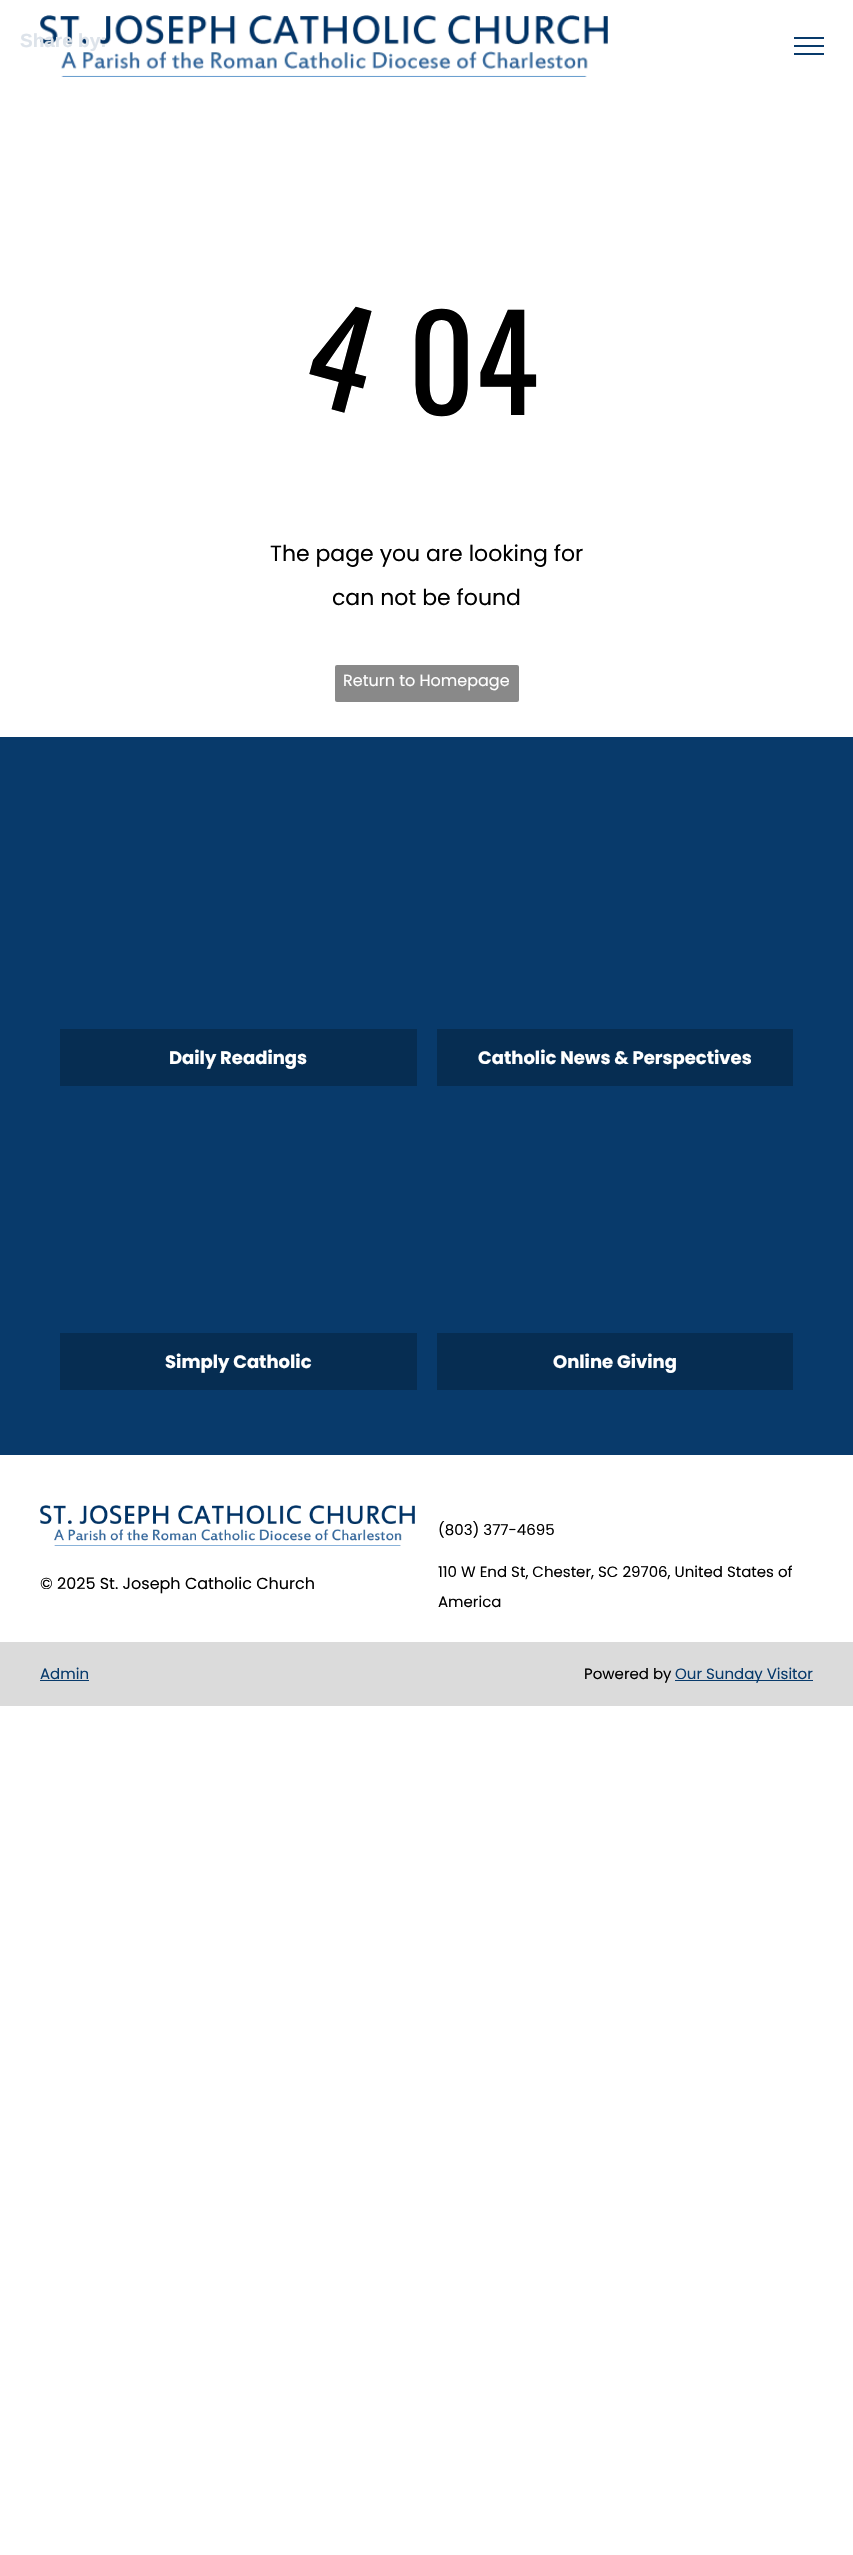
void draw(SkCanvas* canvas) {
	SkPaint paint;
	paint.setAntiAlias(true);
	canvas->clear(0xffffffff);
	canvas->drawImageRect(SkImages::DeferredFromEncodedData(SkData::MakeFromFileName("img1.png")), SkRect::MakeXYWH(40, 15, 568, 62), SkSamplingOptions());
	SkFont f1(fontMgr->matchFamilyStyle("Liberation Sans", SkFontStyle::Bold()), 19);
	f1.setSubpixel(true);
	paint.setColor(0xffdde3ea);
	canvas->drawString("Share by:", 20, 47, f1, paint);
	paint.setColor(0xff083a6b);
	canvas->drawRect(SkRect::MakeXYWH(794, 37, 30, 2), paint);
	canvas->drawRect(SkRect::MakeXYWH(794, 45, 30, 2), paint);
	canvas->drawRect(SkRect::MakeXYWH(794, 53, 30, 2), paint);
	SkFont f2(fontMgr->matchFamilyStyle("Oswald", SkFontStyle::Normal()), 130);
	f2.setSubpixel(true);
	paint.setColor(0xff000000);
	canvas->save();
	canvas->rotate(15, 297, 400);
	canvas->drawString("4", 297, 400, f2, paint);
	canvas->restore();
	canvas->drawString("04", 408, 415, f2, paint);
	SkFont f3(fontMgr->matchFamilyStyle("Poppins", SkFontStyle::Normal()), 22);
	f3.setSubpixel(true);
	canvas->drawString("The page you are looking for", 270, 561, f3, paint);
	canvas->drawString("can not be found", 332, 605, f3, paint);
	paint.setColor(0xff898989);
	canvas->drawRoundRect(SkRect::MakeXYWH(335, 665, 184, 37), 2, 2, paint);
	SkFont f4(fontMgr->matchFamilyStyle("Poppins", SkFontStyle::Normal()), 16);
	f4.setSubpixel(true);
	paint.setColor(0xffffffff);
	canvas->drawString("Return to Homepage", 343, 686, f4, paint);
	paint.setColor(0xff083a6b);
	canvas->drawRect(SkRect::MakeXYWH(0, 737, 853, 718), paint);
	paint.setColor(0xff062d52);
	canvas->drawRect(SkRect::MakeXYWH(60, 1029, 357, 57), paint);
	SkFont f5(fontMgr->matchFamilyStyle("Poppins", SkFontStyle::Bold()), 18);
	f5.setSubpixel(true);
	paint.setColor(0xffffffff);
	canvas->drawString("Daily Readings", 169, 1064, f5, paint);
	paint.setColor(0xff062d52);
	canvas->drawRect(SkRect::MakeXYWH(437, 1029, 356, 57), paint);
	paint.setColor(0xffffffff);
	canvas->drawString("Catholic News & Perspectives", 478, 1064, f5, paint);
	paint.setColor(0xff062d52);
	canvas->drawRect(SkRect::MakeXYWH(60, 1333, 357, 57), paint);
	paint.setColor(0xffffffff);
	canvas->drawString("Simply Catholic", 165, 1368, f5, paint);
	paint.setColor(0xff062d52);
	canvas->drawRect(SkRect::MakeXYWH(437, 1333, 356, 57), paint);
	paint.setColor(0xffffffff);
	canvas->drawString("Online Giving", 553, 1368, f5, paint);
	canvas->drawImageRect(SkImages::DeferredFromEncodedData(SkData::MakeFromFileName("img2.png")), SkRect::MakeXYWH(40, 1505, 375, 41), SkSamplingOptions());
	paint.setColor(0xff000000);
	canvas->drawString("© 2025 St. Joseph Catholic Church", 40, 1589, f4, paint);
	SkFont f6(fontMgr->matchFamilyStyle("Poppins", SkFontStyle::Normal()), 15);
	f6.setSubpixel(true);
	canvas->drawString("(803) 377-4695", 438, 1535, f6, paint);
	canvas->drawString("110 W End St, Chester, SC 29706, United States of", 438, 1577, f6, paint);
	canvas->drawString("America", 438, 1607, f6, paint);
	paint.setColor(0xffdbdbdb);
	canvas->drawRect(SkRect::MakeXYWH(0, 1642, 853, 64), paint);
	paint.setColor(0xff083a6b);
	canvas->drawString("Admin", 40, 1679, f6, paint);
	canvas->drawRect(SkRect::MakeXYWH(40, 1680, 49, 1), paint);
	paint.setColor(0xff000000);
	canvas->drawString("Powered by", 584, 1679, f6, paint);
	paint.setColor(0xff083a6b);
	canvas->drawRect(SkRect::MakeXYWH(675, 1680, 138, 1), paint);
	canvas->drawString("Our Sunday Visitor", 675, 1679, f6, paint);
}
